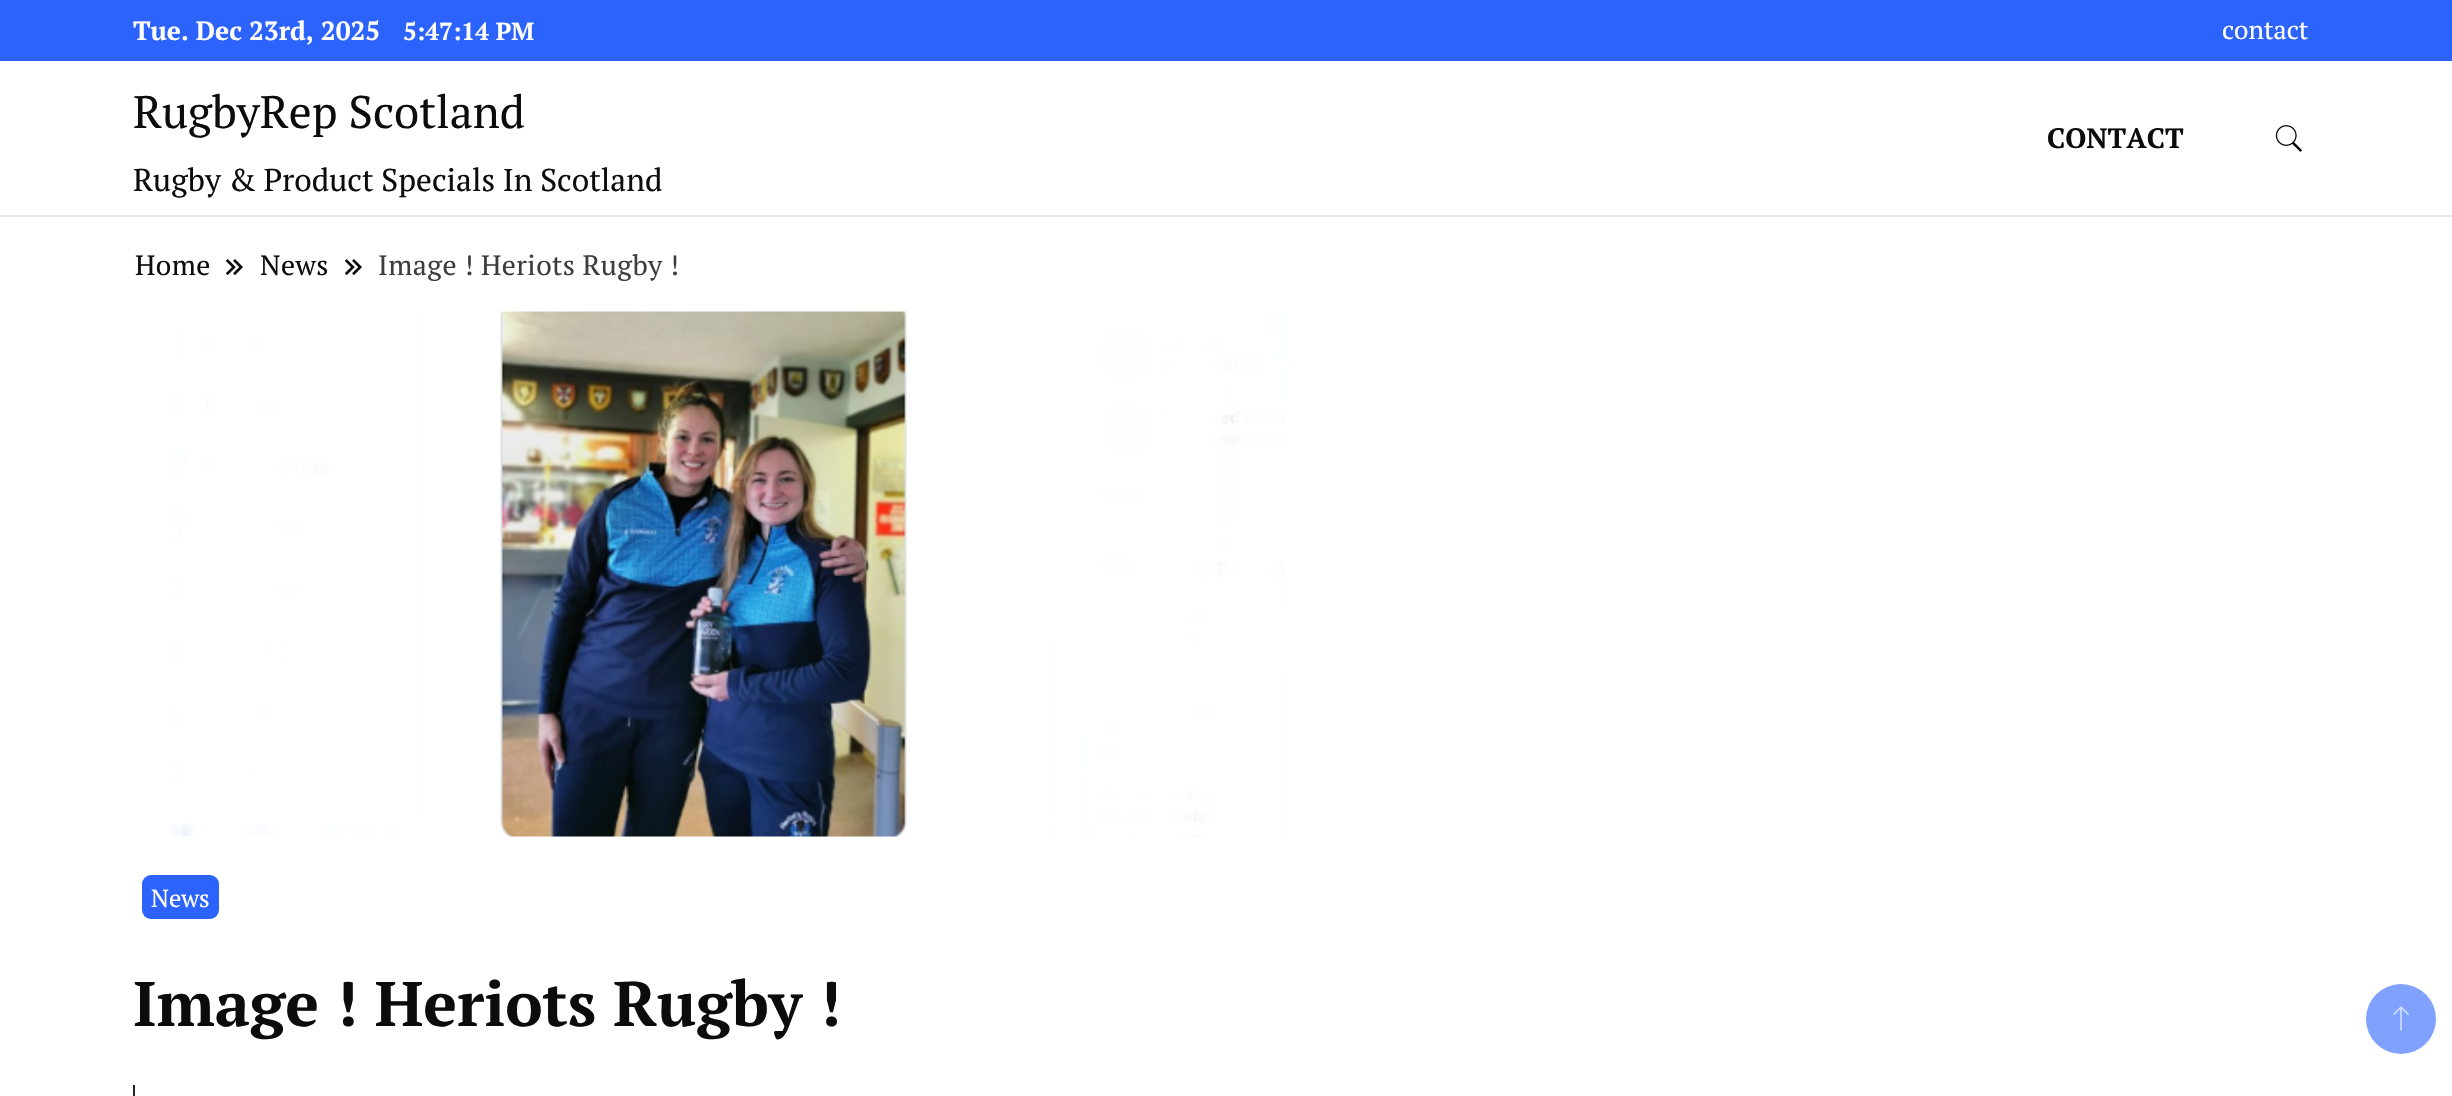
void draw(SkCanvas* canvas) {
	SkPaint paint;
	paint.setAntiAlias(true);
	auto spacedText = [&](const char* s, float x, float y, const SkFont& font, const SkPaint& ink, float letter, float word) {
		std::vector<SkGlyphID> glyphs(font.countText(s, strlen(s), SkTextEncoding::kUTF8));
		std::vector<float> xs(glyphs.size());
		font.textToGlyphs(s, strlen(s), SkTextEncoding::kUTF8, glyphs);
		font.getXPos(glyphs, xs, x);
		float extra = 0;
		for (size_t i = 0; i < glyphs.size(); i++) {
			xs[i] += extra;
			extra += letter + word * (glyphs[i] == font.unicharToGlyph(' '));
		}
		canvas->drawTextBlob(SkTextBlob::MakeFromPosHGlyphs(glyphs, xs, y, font), 0, 0, ink);
	};
	canvas->clear(0xffffffff);
	paint.setColor(0xffe8e9e9);
	canvas->drawRect(SkRect::MakeXYWH(0, 215, 2452, 2), paint);
	paint.setColor(0xff2c63fd);
	canvas->drawRect(SkRect::MakeXYWH(0, 0, 2452, 61), paint);
	SkFont f1(fontMgr->matchFamilyStyle("PT Serif", SkFontStyle::Bold()), 26.25);
	f1.setSubpixel(true);
	paint.setColor(0xffffffff);
	canvas->drawString("Tue. Dec 23rd, 2025", 133, 40, f1, paint);
	SkFont f2(fontMgr->matchFamilyStyle("PT Serif", SkFontStyle::Bold()), 24.5);
	f2.setSubpixel(true);
	canvas->drawString("5:47:14 PM", 403, 40, f2, paint);
	SkFont f3(fontMgr->matchFamilyStyle("PT Serif", SkFontStyle::Normal()), 26);
	f3.setSubpixel(true);
	canvas->drawString("contact", 2222, 39, f3, paint);
	SkFont f4(fontMgr->matchFamilyStyle("PT Serif", SkFontStyle::Normal()), 45.5);
	f4.setSubpixel(true);
	paint.setColor(0xff0c0c0c);
	canvas->drawString("RugbyRep Scotland", 133, 128, f4, paint);
	SkFont f5(fontMgr->matchFamilyStyle("PT Serif", SkFontStyle::Normal()), 31.5);
	f5.setSubpixel(true);
	canvas->drawString("Rugby & Product Specials In Scotland", 133, 191, f5, paint);
	SkFont f6(fontMgr->matchFamilyStyle("PT Serif", SkFontStyle::Bold()), 28);
	f6.setSubpixel(true);
	canvas->drawString("CONTACT", 2047, 148, f6, paint);
	canvas->drawImageRect(SkImages::DeferredFromEncodedData(SkData::MakeFromFileName("img1.png")), SkRect::MakeXYWH(2275, 125, 27, 27), SkSamplingOptions());
	SkFont f7(fontMgr->matchFamilyStyle("PT Serif", SkFontStyle::Normal()), 28);
	f7.setSubpixel(true);
	spacedText("Home", 135, 275, f7, paint, 0.4, 0);
	canvas->drawImageRect(SkImages::DeferredFromEncodedData(SkData::MakeFromFileName("img2.png")), SkRect::MakeXYWH(226, 259, 17, 17), SkSamplingOptions());
	spacedText("News", 260, 275, f7, paint, 0.4, 0);
	canvas->drawImageRect(SkImages::DeferredFromEncodedData(SkData::MakeFromFileName("img2.png")), SkRect::MakeXYWH(345, 259, 17, 17), SkSamplingOptions());
	paint.setColor(0xff3d3d3d);
	spacedText("Image ! Heriots Rugby !", 378, 275, f7, paint, 0.4, 0);
	canvas->drawImageRect(SkImages::DeferredFromEncodedData(SkData::MakeFromFileName("img3.png")), SkRect::MakeXYWH(171, 311, 1114, 526), SkSamplingOptions());
	paint.setColor(0xff2c63fd);
	canvas->drawRoundRect(SkRect::MakeXYWH(142, 875, 77, 44), 9, 9, paint);
	SkFont f8(fontMgr->matchFamilyStyle("PT Serif", SkFontStyle::Normal()), 24.5);
	f8.setSubpixel(true);
	paint.setColor(0xffffffff);
	canvas->drawString("News", 151, 907, f8, paint);
	SkFont f9(fontMgr->matchFamilyStyle("PT Serif", SkFontStyle::Bold()), 63);
	f9.setSubpixel(true);
	paint.setColor(0xff0c0c0c);
	canvas->drawString("Image ! Heriots Rugby !", 133, 1026, f9, paint);
	paint.setColor(0xff242424);
	canvas->drawRect(SkRect::MakeXYWH(133, 1085, 2, 11), paint);
	paint.setColor(0xff80a1fe);
	canvas->drawCircle(2401, 1019, 35, paint);
	canvas->drawImageRect(SkImages::DeferredFromEncodedData(SkData::MakeFromFileName("img4.png")), SkRect::MakeXYWH(2393, 1006, 16, 25), SkSamplingOptions());
}
